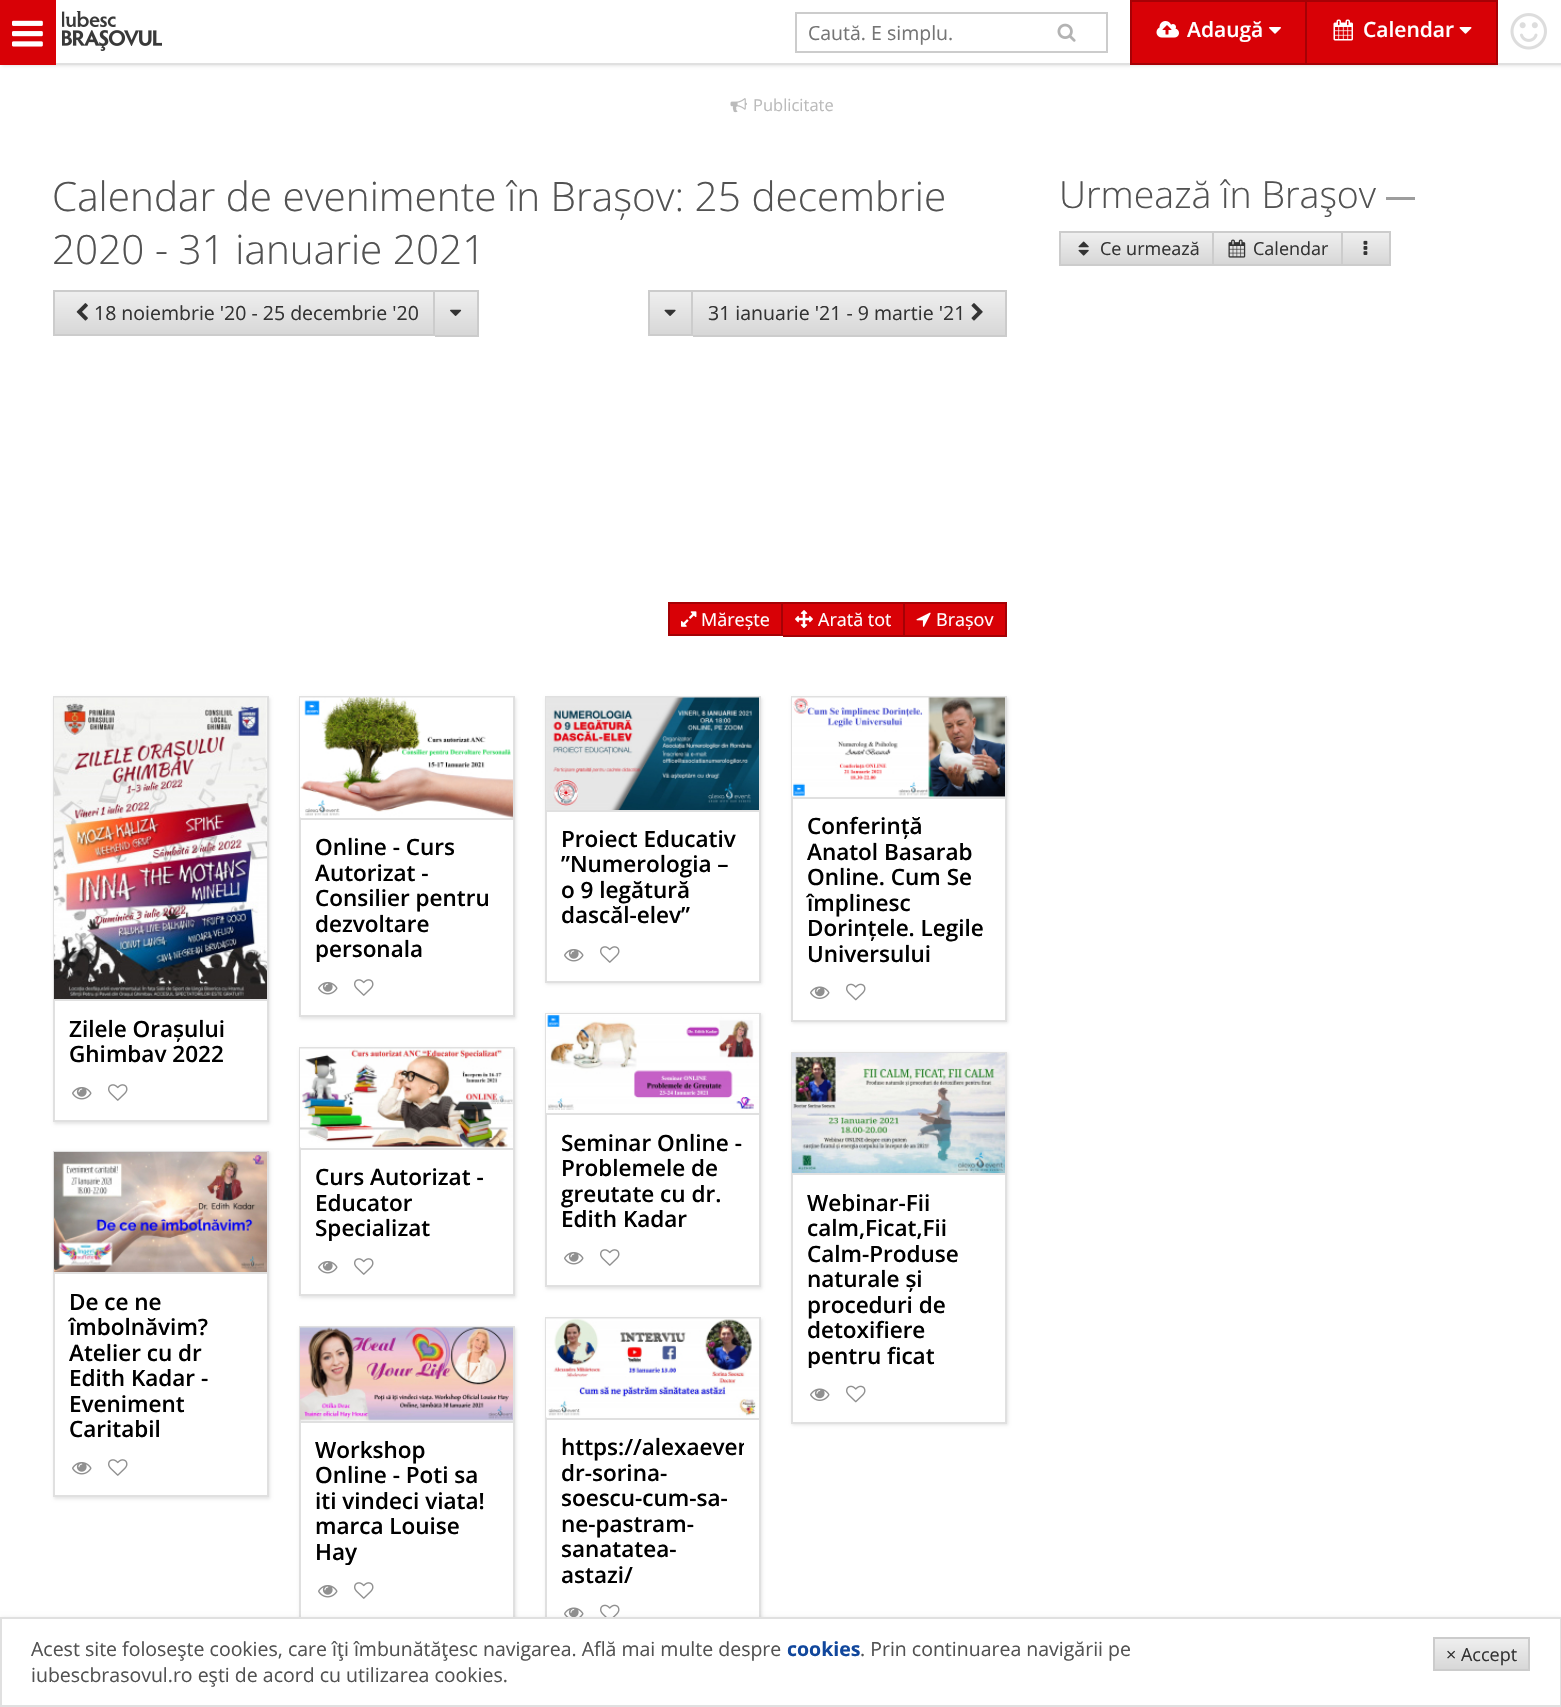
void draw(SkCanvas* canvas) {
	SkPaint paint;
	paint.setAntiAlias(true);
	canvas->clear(0xffffffff);
	paint.setColor(0x1a000000);
	paint.setMaskFilter(SkMaskFilter::MakeBlur(kNormal_SkBlurStyle, 1.5));
	canvas->drawRect(SkRect::MakeXYWH(2, 2, 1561, 64), paint);
	paint.setMaskFilter(nullptr);
	paint.setColor(0xffffffff);
	canvas->drawRect(SkRect::MakeXYWH(56, 0, 1505, 63), paint);
	paint.setColor(0xffe0e0e0);
	canvas->drawRect(SkRect::MakeXYWH(56, 63, 1505, 2), paint);
	paint.setColor(0xffd80106);
	canvas->drawRect(SkRect::MakeXYWH(0, 0, 56, 65), paint);
	canvas->drawImageRect(SkImages::DeferredFromEncodedData(SkData::MakeFromFileName("img1.png")), SkRect::MakeXYWH(12, 20, 31, 27), SkSamplingOptions());
	canvas->drawImageRect(SkImages::DeferredFromEncodedData(SkData::MakeFromFileName("img2.png")), SkRect::MakeXYWH(62, 11, 100, 40), SkSamplingOptions());
	paint.setColor(0xffcccccc);
	canvas->drawRect(SkRect::MakeXYWH(795, 12, 312, 2), paint);
	canvas->drawRect(SkRect::MakeXYWH(795, 51, 234, 2), paint);
	canvas->drawRect(SkRect::MakeXYWH(795, 12, 2, 41), paint);
	SkFont f1(fontMgr->matchFamilyStyle("Open Sans", SkFontStyle::Normal()), 19.5);
	f1.setSubpixel(true);
	paint.setColor(0xff757575);
	canvas->drawString("Caută. E simplu.", 808, 40, f1, paint);
	paint.setColor(0xffcccccc);
	canvas->drawRect(SkRect::MakeXYWH(1106, 12, 2, 41), paint);
	canvas->drawRect(SkRect::MakeXYWH(1029, 51, 78, 2), paint);
	canvas->drawImageRect(SkImages::DeferredFromEncodedData(SkData::MakeFromFileName("img3.png")), SkRect::MakeXYWH(1057, 23, 19, 19), SkSamplingOptions());
	paint.setColor(0xffd80106);
	canvas->drawRect(SkRect::MakeXYWH(1131, 1, 175, 63), paint);
	paint.setStroke(true);
	paint.setStrokeWidth(2);
	paint.setColor(0xffa50105);
	canvas->drawRect(SkRect::MakeXYWH(1131, 1, 175, 63), paint);
	canvas->drawImageRect(SkImages::DeferredFromEncodedData(SkData::MakeFromFileName("img4.png")), SkRect::MakeXYWH(1156, 21, 23, 17), SkSamplingOptions());
	SkFont f2(fontMgr->matchFamilyStyle("Open Sans", SkFontStyle(600, SkFontStyle::kNormal_Width, SkFontStyle::kUpright_Slant)), 21);
	f2.setSubpixel(true);
	paint.setStroke(false);
	paint.setColor(0xffffffff);
	canvas->drawString("Adaugă", 1187, 37, f2, paint);
	canvas->drawImageRect(SkImages::DeferredFromEncodedData(SkData::MakeFromFileName("img5.png")), SkRect::MakeXYWH(1269, 27, 12, 7), SkSamplingOptions());
	paint.setColor(0xffd80106);
	canvas->drawRect(SkRect::MakeXYWH(1307, 2, 189, 61), paint);
	paint.setColor(0xffa50105);
	canvas->drawRect(SkRect::MakeXYWH(1307, 0, 190, 2), paint);
	canvas->drawRect(SkRect::MakeXYWH(1496, 0, 2, 65), paint);
	canvas->drawRect(SkRect::MakeXYWH(1307, 63, 190, 2), paint);
	canvas->drawImageRect(SkImages::DeferredFromEncodedData(SkData::MakeFromFileName("img6.png")), SkRect::MakeXYWH(1333, 19, 20, 22), SkSamplingOptions());
	paint.setColor(0xffffffff);
	canvas->drawString("Calendar", 1363, 37, f2, paint);
	canvas->drawImageRect(SkImages::DeferredFromEncodedData(SkData::MakeFromFileName("img7.png")), SkRect::MakeXYWH(1459, 27, 13, 7), SkSamplingOptions());
	canvas->drawImageRect(SkImages::DeferredFromEncodedData(SkData::MakeFromFileName("img8.png")), SkRect::MakeXYWH(1510, 13, 37, 37), SkSamplingOptions());
	canvas->drawImageRect(SkImages::DeferredFromEncodedData(SkData::MakeFromFileName("img9.png")), SkRect::MakeXYWH(730, 98, 17, 15), SkSamplingOptions());
	SkFont f3(fontMgr->matchFamilyStyle("Open Sans", SkFontStyle::Normal()), 16.5);
	f3.setSubpixel(true);
	paint.setColor(0xffbbbbbb);
	canvas->drawString("Publicitate", 753, 111, f3, paint);
	SkFont f4(fontMgr->matchFamilyStyle("Open Sans", SkFontStyle(300, SkFontStyle::kNormal_Width, SkFontStyle::kUpright_Slant)), 40.5);
	f4.setSubpixel(true);
	paint.setColor(0xff525252);
	canvas->drawString("Calendar de evenimente în Brașov: 25 decembrie", 52, 211, f4, paint);
	canvas->drawString("2020 - 31 ianuarie 2021", 52, 264, f4, paint);
	{
		const SkColor colors[] = {0xffefefef, 0xffd7d7d7};
		const float stops[] = {0, 1};
		const SkPoint ends[] = {{244, 291}, {244, 335}};
		paint.setShader(SkGradientShader::MakeLinear(ends, colors, stops, 2, SkTileMode::kClamp));
		paint.setAlpha(255);
	}
	canvas->drawRect(SkRect::MakeXYWH(55, 292, 378, 42), paint);
	paint.setStroke(true);
	paint.setShader(nullptr);
	paint.setColor(0xffcccccc);
	canvas->drawRect(SkRect::MakeXYWH(54, 291, 380, 44), paint);
	canvas->drawImageRect(SkImages::DeferredFromEncodedData(SkData::MakeFromFileName("img10.png")), SkRect::MakeXYWH(76, 303, 12, 18), SkSamplingOptions());
	paint.setStroke(false);
	paint.setColor(0xff333333);
	canvas->drawString("18 noiembrie '20 - 25 decembrie '20", 94, 320, f1, paint);
	{
		const SkColor colors[] = {0xffefefef, 0xffd7d7d7};
		const float stops[] = {0, 1};
		const SkPoint ends[] = {{456, 291}, {456, 335}};
		paint.setShader(SkGradientShader::MakeLinear(ends, colors, stops, 2, SkTileMode::kClamp));
		paint.setAlpha(255);
	}
	canvas->drawRect(SkRect::MakeXYWH(435, 292, 42, 43), paint);
	paint.setShader(nullptr);
	paint.setColor(0xffcccccc);
	canvas->drawRect(SkRect::MakeXYWH(435, 290, 44, 2), paint);
	canvas->drawRect(SkRect::MakeXYWH(477, 290, 2, 46), paint);
	canvas->drawRect(SkRect::MakeXYWH(435, 335, 44, 2), paint);
	canvas->drawImageRect(SkImages::DeferredFromEncodedData(SkData::MakeFromFileName("img11.png")), SkRect::MakeXYWH(450, 309, 12, 7), SkSamplingOptions());
	{
		const SkColor colors[] = {0xffefefef, 0xffd7d7d7};
		const float stops[] = {0, 1};
		const SkPoint ends[] = {{671, 291}, {671, 335}};
		paint.setShader(SkGradientShader::MakeLinear(ends, colors, stops, 2, SkTileMode::kClamp));
		paint.setAlpha(255);
	}
	canvas->drawRect(SkRect::MakeXYWH(650, 292, 41, 42), paint);
	paint.setStroke(true);
	paint.setShader(nullptr);
	paint.setColor(0xffcccccc);
	canvas->drawRect(SkRect::MakeXYWH(649, 291, 43, 44), paint);
	canvas->drawImageRect(SkImages::DeferredFromEncodedData(SkData::MakeFromFileName("img12.png")), SkRect::MakeXYWH(664, 309, 12, 7), SkSamplingOptions());
	paint.setStroke(false);
	{
		const SkColor colors[] = {0xffefefef, 0xffd7d7d7};
		const float stops[] = {0, 1};
		const SkPoint ends[] = {{849, 291}, {849, 335}};
		paint.setShader(SkGradientShader::MakeLinear(ends, colors, stops, 2, SkTileMode::kClamp));
		paint.setAlpha(255);
	}
	canvas->drawRect(SkRect::MakeXYWH(693, 292, 312, 43), paint);
	paint.setShader(nullptr);
	paint.setColor(0xffcccccc);
	canvas->drawRect(SkRect::MakeXYWH(693, 290, 314, 2), paint);
	canvas->drawRect(SkRect::MakeXYWH(1005, 290, 2, 46), paint);
	canvas->drawRect(SkRect::MakeXYWH(693, 335, 314, 2), paint);
	paint.setColor(0xff333333);
	canvas->drawString("31 ianuarie '21 - 9 martie '21", 708, 320, f1, paint);
	canvas->drawImageRect(SkImages::DeferredFromEncodedData(SkData::MakeFromFileName("img13.png")), SkRect::MakeXYWH(971, 303, 12, 18), SkSamplingOptions());
	paint.setColor(0xffd80106);
	canvas->drawRect(SkRect::MakeXYWH(669, 603, 113, 32), paint);
	paint.setStroke(true);
	paint.setColor(0xffa50105);
	canvas->drawRect(SkRect::MakeXYWH(669, 603, 113, 32), paint);
	canvas->drawImageRect(SkImages::DeferredFromEncodedData(SkData::MakeFromFileName("img14.png")), SkRect::MakeXYWH(681, 611, 16, 16), SkSamplingOptions());
	SkFont f5(fontMgr->matchFamilyStyle("Open Sans", SkFontStyle::Normal()), 18);
	f5.setSubpixel(true);
	paint.setStroke(false);
	paint.setColor(0xffffffff);
	canvas->drawString("Mărește", 701, 626, f5, paint);
	paint.setColor(0xffd80106);
	canvas->drawRect(SkRect::MakeXYWH(783, 604, 120, 31), paint);
	paint.setColor(0xffa50105);
	canvas->drawRect(SkRect::MakeXYWH(783, 602, 224, 2), paint);
	canvas->drawRect(SkRect::MakeXYWH(903, 602, 2, 34), paint);
	canvas->drawRect(SkRect::MakeXYWH(783, 635, 122, 2), paint);
	canvas->drawImageRect(SkImages::DeferredFromEncodedData(SkData::MakeFromFileName("img15.png")), SkRect::MakeXYWH(795, 610, 18, 18), SkSamplingOptions());
	paint.setColor(0xffffffff);
	canvas->drawString("Arată tot", 818, 626, f5, paint);
	paint.setColor(0xffd80106);
	canvas->drawRect(SkRect::MakeXYWH(905, 604, 100, 31), paint);
	paint.setColor(0xffa50105);
	canvas->drawRect(SkRect::MakeXYWH(1005, 602, 2, 34), paint);
	canvas->drawRect(SkRect::MakeXYWH(905, 635, 102, 2), paint);
	canvas->drawImageRect(SkImages::DeferredFromEncodedData(SkData::MakeFromFileName("img16.png")), SkRect::MakeXYWH(916, 612, 15, 15), SkSamplingOptions());
	paint.setColor(0xffffffff);
	canvas->drawString("Brașov", 936, 626, f5, paint);
	paint.setColor(0x1a000000);
	paint.setMaskFilter(SkMaskFilter::MakeBlur(kNormal_SkBlurStyle, 1.5));
	canvas->drawRect(SkRect::MakeXYWH(300, 698, 216, 321), paint);
	paint.setMaskFilter(nullptr);
	paint.setColor(0xffffffff);
	canvas->drawRect(SkRect::MakeXYWH(301, 817, 212, 198), paint);
	paint.setStroke(true);
	paint.setColor(0xffe0e0e0);
	canvas->drawRect(SkRect::MakeXYWH(300, 697, 214, 319), paint);
	paint.setStroke(false);
	canvas->drawRect(SkRect::MakeXYWH(300, 818, 213, 2), paint);
	canvas->drawImageRect(SkImages::DeferredFromEncodedData(SkData::MakeFromFileName("img17.png")), SkRect::MakeXYWH(300, 697, 213, 121), SkSamplingOptions());
	SkFont f6(fontMgr->matchFamilyStyle("Open Sans", SkFontStyle(600, SkFontStyle::kNormal_Width, SkFontStyle::kUpright_Slant)), 22.5);
	f6.setSubpixel(true);
	paint.setColor(0xff000000);
	canvas->drawString("Online - Curs", 315, 855, f6, paint);
	canvas->drawString("Autorizat -", 315, 881, f6, paint);
	canvas->drawString("Consilier pentru", 315, 906, f6, paint);
	canvas->drawString("dezvoltare", 315, 932, f6, paint);
	canvas->save();
	canvas->clipRect(SkRect::MakeXYWH(315, 834, 183, 128));
	canvas->drawString("personala", 315, 957, f6, paint);
	canvas->restore();
	canvas->drawImageRect(SkImages::DeferredFromEncodedData(SkData::MakeFromFileName("img18.png")), SkRect::MakeXYWH(318, 982, 20, 13), SkSamplingOptions());
	canvas->drawImageRect(SkImages::DeferredFromEncodedData(SkData::MakeFromFileName("img19.png")), SkRect::MakeXYWH(354, 979, 20, 17), SkSamplingOptions());
	paint.setColor(0x1a000000);
	paint.setMaskFilter(SkMaskFilter::MakeBlur(kNormal_SkBlurStyle, 1.5));
	canvas->drawRect(SkRect::MakeXYWH(546, 698, 216, 286), paint);
	paint.setMaskFilter(nullptr);
	paint.setColor(0xffffffff);
	canvas->drawRect(SkRect::MakeXYWH(547, 812, 212, 169), paint);
	paint.setStroke(true);
	paint.setColor(0xffe0e0e0);
	canvas->drawRect(SkRect::MakeXYWH(546, 697, 214, 285), paint);
	paint.setStroke(false);
	canvas->drawRect(SkRect::MakeXYWH(546, 810, 213, 2), paint);
	canvas->drawImageRect(SkImages::DeferredFromEncodedData(SkData::MakeFromFileName("img20.png")), SkRect::MakeXYWH(546, 697, 213, 113), SkSamplingOptions());
	paint.setColor(0xff000000);
	canvas->drawString("Proiect Educativ", 561, 847, f6, paint);
	canvas->drawString("”Numerologia –", 561, 872, f6, paint);
	canvas->drawString("o 9 legătură", 561, 898, f6, paint);
	canvas->drawString("dascăl-elev”", 561, 923, f6, paint);
	canvas->drawImageRect(SkImages::DeferredFromEncodedData(SkData::MakeFromFileName("img18.png")), SkRect::MakeXYWH(564, 949, 20, 13), SkSamplingOptions());
	canvas->drawImageRect(SkImages::DeferredFromEncodedData(SkData::MakeFromFileName("img19.png")), SkRect::MakeXYWH(600, 946, 20, 17), SkSamplingOptions());
	paint.setColor(0x1a000000);
	paint.setMaskFilter(SkMaskFilter::MakeBlur(kNormal_SkBlurStyle, 1.5));
	canvas->drawRect(SkRect::MakeXYWH(792, 698, 216, 325), paint);
	paint.setMaskFilter(nullptr);
	paint.setColor(0xffffffff);
	canvas->drawRect(SkRect::MakeXYWH(793, 796, 212, 224), paint);
	paint.setStroke(true);
	paint.setColor(0xffe0e0e0);
	canvas->drawRect(SkRect::MakeXYWH(792, 697, 214, 324), paint);
	paint.setStroke(false);
	canvas->drawRect(SkRect::MakeXYWH(792, 797, 213, 2), paint);
	canvas->drawImageRect(SkImages::DeferredFromEncodedData(SkData::MakeFromFileName("img21.png")), SkRect::MakeXYWH(792, 697, 213, 100), SkSamplingOptions());
	paint.setColor(0xff000000);
	canvas->drawString("Conferință", 807, 834, f6, paint);
	canvas->drawString("Anatol Basarab", 807, 860, f6, paint);
	canvas->drawString("Online. Cum Se", 807, 885, f6, paint);
	canvas->drawString("împlinesc", 807, 911, f6, paint);
	canvas->drawString("Dorințele. Legile", 807, 936, f6, paint);
	canvas->drawString("Universului", 807, 962, f6, paint);
	canvas->drawImageRect(SkImages::DeferredFromEncodedData(SkData::MakeFromFileName("img22.png")), SkRect::MakeXYWH(810, 986, 20, 13), SkSamplingOptions());
	canvas->drawImageRect(SkImages::DeferredFromEncodedData(SkData::MakeFromFileName("img23.png")), SkRect::MakeXYWH(846, 983, 20, 18), SkSamplingOptions());
	paint.setColor(0x1a000000);
	paint.setMaskFilter(SkMaskFilter::MakeBlur(kNormal_SkBlurStyle, 1.5));
	canvas->drawRect(SkRect::MakeXYWH(54, 698, 216, 426), paint);
	paint.setMaskFilter(nullptr);
	paint.setColor(0xffffffff);
	canvas->drawRect(SkRect::MakeXYWH(55, 1001, 212, 119), paint);
	paint.setStroke(true);
	paint.setColor(0xffe0e0e0);
	canvas->drawRect(SkRect::MakeXYWH(54, 697, 214, 424), paint);
	paint.setStroke(false);
	canvas->drawRect(SkRect::MakeXYWH(54, 999, 213, 2), paint);
	canvas->drawImageRect(SkImages::DeferredFromEncodedData(SkData::MakeFromFileName("img24.png")), SkRect::MakeXYWH(54, 697, 213, 302), SkSamplingOptions());
	paint.setColor(0xff000000);
	canvas->drawString("Zilele Orașului", 69, 1037, f6, paint);
	canvas->drawString("Ghimbav 2022", 69, 1062, f6, paint);
	canvas->drawImageRect(SkImages::DeferredFromEncodedData(SkData::MakeFromFileName("img18.png")), SkRect::MakeXYWH(72, 1087, 20, 13), SkSamplingOptions());
	canvas->drawImageRect(SkImages::DeferredFromEncodedData(SkData::MakeFromFileName("img19.png")), SkRect::MakeXYWH(108, 1084, 20, 17), SkSamplingOptions());
	paint.setColor(0x1a000000);
	paint.setMaskFilter(SkMaskFilter::MakeBlur(kNormal_SkBlurStyle, 1.5));
	canvas->drawRect(SkRect::MakeXYWH(54, 1152, 216, 347), paint);
	paint.setMaskFilter(nullptr);
	paint.setColor(0xffffffff);
	canvas->drawRect(SkRect::MakeXYWH(55, 1274, 212, 221), paint);
	paint.setStroke(true);
	paint.setColor(0xffe0e0e0);
	canvas->drawRect(SkRect::MakeXYWH(54, 1152, 214, 344), paint);
	paint.setStroke(false);
	canvas->drawRect(SkRect::MakeXYWH(54, 1272, 213, 2), paint);
	canvas->drawImageRect(SkImages::DeferredFromEncodedData(SkData::MakeFromFileName("img25.png")), SkRect::MakeXYWH(54, 1152, 213, 120), SkSamplingOptions());
	paint.setColor(0xff000000);
	canvas->drawString("De ce ne", 69, 1310, f6, paint);
	canvas->drawString("îmbolnăvim?", 69, 1335, f6, paint);
	canvas->drawString("Atelier cu dr", 69, 1361, f6, paint);
	canvas->drawString("Edith Kadar -", 69, 1386, f6, paint);
	canvas->drawString("Eveniment", 69, 1412, f6, paint);
	canvas->drawString("Caritabil", 69, 1437, f6, paint);
	canvas->drawImageRect(SkImages::DeferredFromEncodedData(SkData::MakeFromFileName("img18.png")), SkRect::MakeXYWH(72, 1462, 20, 13), SkSamplingOptions());
	canvas->drawImageRect(SkImages::DeferredFromEncodedData(SkData::MakeFromFileName("img19.png")), SkRect::MakeXYWH(108, 1459, 20, 17), SkSamplingOptions());
	paint.setColor(0x1a000000);
	paint.setMaskFilter(SkMaskFilter::MakeBlur(kNormal_SkBlurStyle, 1.5));
	canvas->drawRect(SkRect::MakeXYWH(300, 1049, 216, 249), paint);
	paint.setMaskFilter(nullptr);
	paint.setColor(0xffffffff);
	canvas->drawRect(SkRect::MakeXYWH(301, 1147, 212, 147), paint);
	paint.setStroke(true);
	paint.setColor(0xffe0e0e0);
	canvas->drawRect(SkRect::MakeXYWH(300, 1048, 214, 247), paint);
	paint.setStroke(false);
	canvas->drawRect(SkRect::MakeXYWH(300, 1148, 213, 2), paint);
	canvas->drawImageRect(SkImages::DeferredFromEncodedData(SkData::MakeFromFileName("img26.png")), SkRect::MakeXYWH(300, 1048, 213, 100), SkSamplingOptions());
	paint.setColor(0xff000000);
	canvas->drawString("Curs Autorizat -", 315, 1185, f6, paint);
	canvas->drawString("Educator", 315, 1211, f6, paint);
	canvas->save();
	canvas->clipRect(SkRect::MakeXYWH(315, 1164, 183, 77));
	canvas->drawString("Specializat", 315, 1236, f6, paint);
	canvas->restore();
	canvas->drawImageRect(SkImages::DeferredFromEncodedData(SkData::MakeFromFileName("img18.png")), SkRect::MakeXYWH(318, 1261, 20, 13), SkSamplingOptions());
	canvas->drawImageRect(SkImages::DeferredFromEncodedData(SkData::MakeFromFileName("img19.png")), SkRect::MakeXYWH(354, 1258, 20, 17), SkSamplingOptions());
	paint.setColor(0x1a000000);
	paint.setMaskFilter(SkMaskFilter::MakeBlur(kNormal_SkBlurStyle, 1.5));
	canvas->drawRect(SkRect::MakeXYWH(546, 1014, 216, 275), paint);
	paint.setMaskFilter(nullptr);
	paint.setColor(0xffffffff);
	canvas->drawRect(SkRect::MakeXYWH(547, 1115, 212, 170), paint);
	paint.setStroke(true);
	paint.setColor(0xffe0e0e0);
	canvas->drawRect(SkRect::MakeXYWH(546, 1014, 214, 272), paint);
	paint.setStroke(false);
	canvas->drawRect(SkRect::MakeXYWH(546, 1113, 213, 2), paint);
	canvas->drawImageRect(SkImages::DeferredFromEncodedData(SkData::MakeFromFileName("img27.png")), SkRect::MakeXYWH(546, 1014, 213, 99), SkSamplingOptions());
	paint.setColor(0xff000000);
	canvas->drawString("Seminar Online -", 561, 1151, f6, paint);
	canvas->drawString("Problemele de", 561, 1176, f6, paint);
	canvas->drawString("greutate cu dr.", 561, 1202, f6, paint);
	canvas->drawString("Edith Kadar", 561, 1227, f6, paint);
	canvas->drawImageRect(SkImages::DeferredFromEncodedData(SkData::MakeFromFileName("img18.png")), SkRect::MakeXYWH(564, 1252, 20, 13), SkSamplingOptions());
	canvas->drawImageRect(SkImages::DeferredFromEncodedData(SkData::MakeFromFileName("img19.png")), SkRect::MakeXYWH(600, 1249, 20, 17), SkSamplingOptions());
	paint.setColor(0x1a000000);
	paint.setMaskFilter(SkMaskFilter::MakeBlur(kNormal_SkBlurStyle, 1.5));
	canvas->drawRect(SkRect::MakeXYWH(792, 1053, 216, 372), paint);
	paint.setMaskFilter(nullptr);
	paint.setColor(0xffffffff);
	canvas->drawRect(SkRect::MakeXYWH(793, 1175, 212, 247), paint);
	paint.setStroke(true);
	paint.setColor(0xffe0e0e0);
	canvas->drawRect(SkRect::MakeXYWH(792, 1053, 214, 370), paint);
	paint.setStroke(false);
	canvas->drawRect(SkRect::MakeXYWH(792, 1173, 213, 2), paint);
	canvas->drawImageRect(SkImages::DeferredFromEncodedData(SkData::MakeFromFileName("img28.png")), SkRect::MakeXYWH(792, 1053, 213, 120), SkSamplingOptions());
	paint.setColor(0xff000000);
	canvas->drawString("Webinar-Fii", 807, 1211, f6, paint);
	canvas->drawString("calm,Ficat,Fii", 807, 1236, f6, paint);
	canvas->drawString("Calm-Produse", 807, 1262, f6, paint);
	canvas->drawString("naturale și", 807, 1287, f6, paint);
	canvas->drawString("proceduri de", 807, 1313, f6, paint);
	canvas->drawString("detoxifiere", 807, 1338, f6, paint);
	canvas->save();
	canvas->clipRect(SkRect::MakeXYWH(807, 1190, 183, 178));
	canvas->drawString("pentru ficat", 807, 1364, f6, paint);
	canvas->restore();
	canvas->drawImageRect(SkImages::DeferredFromEncodedData(SkData::MakeFromFileName("img22.png")), SkRect::MakeXYWH(810, 1388, 20, 13), SkSamplingOptions());
	canvas->drawImageRect(SkImages::DeferredFromEncodedData(SkData::MakeFromFileName("img23.png")), SkRect::MakeXYWH(846, 1385, 20, 18), SkSamplingOptions());
	paint.setColor(0x1a000000);
	paint.setMaskFilter(SkMaskFilter::MakeBlur(kNormal_SkBlurStyle, 1.5));
	canvas->drawRect(SkRect::MakeXYWH(300, 1328, 216, 292), paint);
	paint.setMaskFilter(nullptr);
	paint.setColor(0xffffffff);
	canvas->drawRect(SkRect::MakeXYWH(301, 1420, 212, 197), paint);
	paint.setStroke(true);
	paint.setColor(0xffe0e0e0);
	canvas->drawRect(SkRect::MakeXYWH(300, 1327, 214, 291), paint);
	paint.setStroke(false);
	canvas->drawRect(SkRect::MakeXYWH(300, 1421, 213, 2), paint);
	canvas->drawImageRect(SkImages::DeferredFromEncodedData(SkData::MakeFromFileName("img29.png")), SkRect::MakeXYWH(300, 1327, 213, 94), SkSamplingOptions());
	paint.setColor(0xff000000);
	canvas->drawString("Workshop", 315, 1458, f6, paint);
	canvas->drawString("Online - Poti sa", 315, 1483, f6, paint);
	canvas->drawString("iti vindeci viata!", 315, 1509, f6, paint);
	canvas->drawString("marca Louise", 315, 1534, f6, paint);
	canvas->save();
	canvas->clipRect(SkRect::MakeXYWH(315, 1437, 183, 128));
	canvas->drawString("Hay", 315, 1560, f6, paint);
	canvas->restore();
	canvas->drawImageRect(SkImages::DeferredFromEncodedData(SkData::MakeFromFileName("img18.png")), SkRect::MakeXYWH(318, 1585, 20, 13), SkSamplingOptions());
	canvas->drawImageRect(SkImages::DeferredFromEncodedData(SkData::MakeFromFileName("img19.png")), SkRect::MakeXYWH(354, 1582, 20, 17), SkSamplingOptions());
	paint.setColor(0x1a000000);
	paint.setMaskFilter(SkMaskFilter::MakeBlur(kNormal_SkBlurStyle, 1.5));
	canvas->drawRect(SkRect::MakeXYWH(546, 1319, 216, 325), paint);
	paint.setMaskFilter(nullptr);
	paint.setColor(0xffffffff);
	canvas->drawRect(SkRect::MakeXYWH(547, 1417, 212, 200), paint);
	paint.setStroke(true);
	paint.setColor(0xffe0e0e0);
	canvas->drawRect(SkRect::MakeXYWH(546, 1318, 214, 324), paint);
	paint.setStroke(false);
	canvas->drawRect(SkRect::MakeXYWH(546, 1418, 213, 2), paint);
	canvas->drawImageRect(SkImages::DeferredFromEncodedData(SkData::MakeFromFileName("img30.png")), SkRect::MakeXYWH(546, 1318, 213, 100), SkSamplingOptions());
	canvas->save();
	canvas->clipRect(SkRect::MakeXYWH(561, 1434, 183, 153));
	paint.setColor(0xff000000);
	canvas->drawString("https://alexaeven", 561, 1455, f6, paint);
	canvas->restore();
	canvas->drawString("dr-sorina-", 561, 1481, f6, paint);
	canvas->drawString("soescu-cum-sa-", 561, 1506, f6, paint);
	canvas->drawString("ne-pastram-", 561, 1532, f6, paint);
	canvas->drawString("sanatatea-", 561, 1557, f6, paint);
	canvas->drawString("astazi/", 561, 1583, f6, paint);
	canvas->drawImageRect(SkImages::DeferredFromEncodedData(SkData::MakeFromFileName("img31.png")), SkRect::MakeXYWH(564, 1607, 20, 10), SkSamplingOptions());
	canvas->drawImageRect(SkImages::DeferredFromEncodedData(SkData::MakeFromFileName("img32.png")), SkRect::MakeXYWH(600, 1604, 20, 13), SkSamplingOptions());
	SkFont f7(fontMgr->matchFamilyStyle("Open Sans", SkFontStyle(300, SkFontStyle::kNormal_Width, SkFontStyle::kUpright_Slant)), 37.5);
	f7.setSubpixel(true);
	paint.setColor(0xff525252);
	canvas->drawString("Urmează în Braşov", 1059, 208, f7, paint);
	paint.setColor(0xff9d9d9d);
	canvas->drawRect(SkRect::MakeXYWH(1386, 197, 29, 3), paint);
	{
		const SkColor colors[] = {0xffefefef, 0xffd7d7d7};
		const float stops[] = {0, 1};
		const SkPoint ends[] = {{1136, 233}, {1136, 264}};
		paint.setShader(SkGradientShader::MakeLinear(ends, colors, stops, 2, SkTileMode::kClamp));
		paint.setAlpha(255);
	}
	canvas->drawRect(SkRect::MakeXYWH(1061, 233, 151, 31), paint);
	paint.setStroke(true);
	paint.setShader(nullptr);
	paint.setColor(0xffcccccc);
	canvas->drawRect(SkRect::MakeXYWH(1060, 232, 153, 33), paint);
	canvas->drawImageRect(SkImages::DeferredFromEncodedData(SkData::MakeFromFileName("img33.png")), SkRect::MakeXYWH(1078, 241, 11, 15), SkSamplingOptions());
	paint.setStroke(false);
	paint.setColor(0xff333333);
	canvas->drawString("Ce urmează", 1100, 255, f5, paint);
	{
		const SkColor colors[] = {0xffefefef, 0xffd7d7d7};
		const float stops[] = {0, 1};
		const SkPoint ends[] = {{1277, 233}, {1277, 264}};
		paint.setShader(SkGradientShader::MakeLinear(ends, colors, stops, 2, SkTileMode::kClamp));
		paint.setAlpha(255);
	}
	canvas->drawRect(SkRect::MakeXYWH(1214, 233, 127, 31), paint);
	paint.setShader(nullptr);
	paint.setColor(0xffcccccc);
	canvas->drawRect(SkRect::MakeXYWH(1214, 231, 177, 2), paint);
	canvas->drawRect(SkRect::MakeXYWH(1341, 231, 2, 35), paint);
	canvas->drawRect(SkRect::MakeXYWH(1214, 264, 129, 2), paint);
	canvas->drawImageRect(SkImages::DeferredFromEncodedData(SkData::MakeFromFileName("img34.png")), SkRect::MakeXYWH(1228, 239, 18, 19), SkSamplingOptions());
	paint.setColor(0xff333333);
	canvas->drawString("Calendar", 1253, 255, f5, paint);
	{
		const SkColor colors[] = {0xffefefef, 0xffd7d7d7};
		const float stops[] = {0, 1};
		const SkPoint ends[] = {{1366, 233}, {1366, 264}};
		paint.setShader(SkGradientShader::MakeLinear(ends, colors, stops, 2, SkTileMode::kClamp));
		paint.setAlpha(255);
	}
	canvas->drawRect(SkRect::MakeXYWH(1343, 233, 46, 31), paint);
	paint.setShader(nullptr);
	paint.setColor(0xffcccccc);
	canvas->drawRect(SkRect::MakeXYWH(1389, 231, 2, 35), paint);
	canvas->drawRect(SkRect::MakeXYWH(1343, 264, 48, 2), paint);
	canvas->drawImageRect(SkImages::DeferredFromEncodedData(SkData::MakeFromFileName("img35.png")), SkRect::MakeXYWH(1363, 240, 5, 15), SkSamplingOptions());
	paint.setColor(0x33000000);
	paint.setMaskFilter(SkMaskFilter::MakeBlur(kNormal_SkBlurStyle, 3));
	canvas->drawRect(SkRect::MakeXYWH(0, 1620, 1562, 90), paint);
	paint.setMaskFilter(nullptr);
	paint.setColor(0xffffffff);
	canvas->drawRect(SkRect::MakeXYWH(1, 1618, 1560, 88), paint);
	paint.setStroke(true);
	paint.setColor(0xffe0e0e0);
	canvas->drawRect(SkRect::MakeXYWH(1, 1618, 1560, 88), paint);
	paint.setStroke(false);
	paint.setColor(0xff525252);
	canvas->drawString("Acest site foloseşte cookies, care îţi îmbunătăţesc navigarea. Află mai multe despre", 31, 1656, f1, paint);
	SkFont f8(fontMgr->matchFamilyStyle("Open Sans", SkFontStyle::Bold()), 19.5);
	f8.setSubpixel(true);
	paint.setColor(0xff11479c);
	canvas->drawString("cookies", 787, 1656, f8, paint);
	paint.setColor(0xff525252);
	canvas->drawString(". Prin continuarea navigării pe", 860, 1656, f1, paint);
	canvas->drawString("iubescbrasovul.ro eşti de acord cu utilizarea cookies.", 31, 1682, f1, paint);
	{
		const SkColor colors[] = {0xffefefef, 0xffd7d7d7};
		const float stops[] = {0, 1};
		const SkPoint ends[] = {{1481, 1638}, {1481, 1670}};
		paint.setShader(SkGradientShader::MakeLinear(ends, colors, stops, 2, SkTileMode::kClamp));
		paint.setAlpha(255);
	}
	canvas->drawRect(SkRect::MakeXYWH(1435, 1639, 93, 30), paint);
	paint.setStroke(true);
	paint.setShader(nullptr);
	paint.setColor(0xffcccccc);
	canvas->drawRect(SkRect::MakeXYWH(1434, 1638, 95, 32), paint);
	paint.setStroke(false);
	paint.setColor(0xff333333);
	canvas->drawString("× Accept", 1446, 1661, f5, paint);
}
